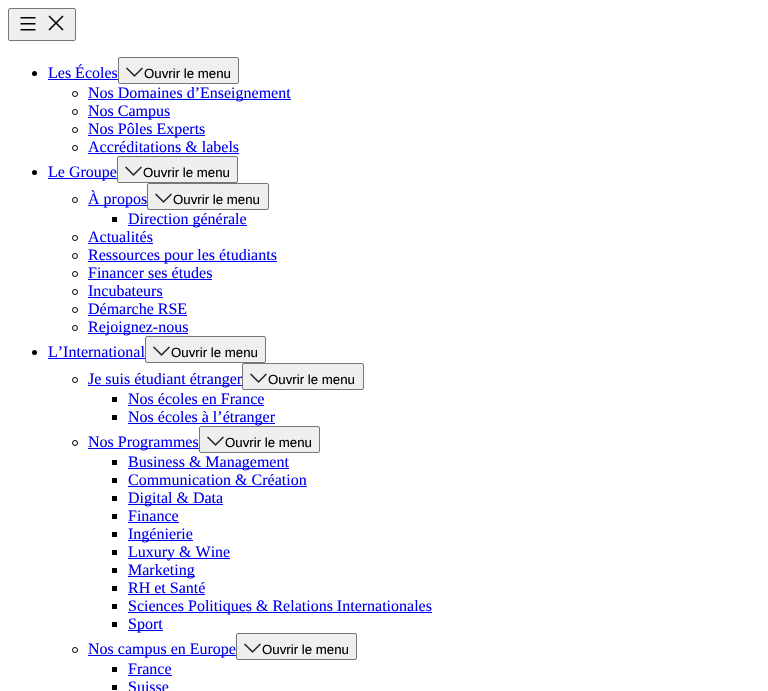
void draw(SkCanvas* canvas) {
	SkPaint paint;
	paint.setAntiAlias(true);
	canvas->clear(0xffffffff);
	paint.setColor(0xffefefef);
	canvas->drawRoundRect(SkRect::MakeXYWH(8.5, 8.5, 67, 32), 1.5, 1.5, paint);
	paint.setStroke(true);
	paint.setStrokeWidth(1);
	paint.setColor(0xff767676);
	canvas->drawRoundRect(SkRect::MakeXYWH(8.5, 8.5, 67, 32), 1.5, 1.5, paint);
	canvas->drawImageRect(SkImages::DeferredFromEncodedData(SkData::MakeFromFileName("img1.png")), SkRect::MakeXYWH(20, 17, 16, 14), SkSamplingOptions());
	canvas->drawImageRect(SkImages::DeferredFromEncodedData(SkData::MakeFromFileName("img2.png")), SkRect::MakeXYWH(48, 15, 16, 16), SkSamplingOptions());
	paint.setStroke(false);
	paint.setColor(0xff000000);
	canvas->drawCircle(34.5, 73.5, 2.5, paint);
	SkFont f1(fontMgr->matchFamilyStyle("Liberation Serif", SkFontStyle::Normal()), 16);
	f1.setSubpixel(true);
	paint.setColor(0xff0000ee);
	canvas->drawString("Les Écoles", 48, 78, f1, paint);
	canvas->drawRect(SkRect::MakeXYWH(48, 79, 70, 1), paint);
	paint.setColor(0xffefefef);
	canvas->drawRoundRect(SkRect::MakeXYWH(118.5, 57.5, 120, 26), 1.5, 1.5, paint);
	paint.setStroke(true);
	paint.setColor(0xff767676);
	canvas->drawRoundRect(SkRect::MakeXYWH(118.5, 57.5, 120, 26), 1.5, 1.5, paint);
	canvas->drawImageRect(SkImages::DeferredFromEncodedData(SkData::MakeFromFileName("img3.png")), SkRect::MakeXYWH(126, 67, 17, 10), SkSamplingOptions());
	SkFont f2(fontMgr->matchFamilyStyle("Liberation Sans", SkFontStyle::Normal()), 13.25);
	f2.setSubpixel(true);
	paint.setStroke(false);
	paint.setColor(0xff000000);
	canvas->drawString("Ouvrir le menu", 144, 78, f2, paint);
	paint.setStroke(true);
	canvas->drawCircle(75, 94, 2.5, paint);
	paint.setStroke(false);
	paint.setColor(0xff0000ee);
	canvas->drawRect(SkRect::MakeXYWH(88, 99, 203, 1), paint);
	canvas->drawString("Nos Domaines d’Enseignement", 88, 98, f1, paint);
	paint.setStroke(true);
	paint.setColor(0xff000000);
	canvas->drawCircle(75, 112, 2.5, paint);
	paint.setStroke(false);
	paint.setColor(0xff0000ee);
	canvas->drawRect(SkRect::MakeXYWH(88, 117, 82, 1), paint);
	canvas->drawString("Nos Campus", 88, 116, f1, paint);
	paint.setStroke(true);
	paint.setColor(0xff000000);
	canvas->drawCircle(75, 130, 2.5, paint);
	paint.setStroke(false);
	paint.setColor(0xff0000ee);
	canvas->drawRect(SkRect::MakeXYWH(88, 135, 117, 1), paint);
	canvas->drawString("Nos Pôles Experts", 88, 134, f1, paint);
	paint.setStroke(true);
	paint.setColor(0xff000000);
	canvas->drawCircle(75, 148, 2.5, paint);
	paint.setStroke(false);
	paint.setColor(0xff0000ee);
	canvas->drawString("Accréditations & labels", 88, 152, f1, paint);
	canvas->drawRect(SkRect::MakeXYWH(88, 153, 151, 1), paint);
	paint.setColor(0xff000000);
	canvas->drawCircle(34.5, 172.5, 2.5, paint);
	paint.setColor(0xff0000ee);
	canvas->drawRect(SkRect::MakeXYWH(48, 178, 69, 1), paint);
	canvas->drawString("Le Groupe", 48, 177, f1, paint);
	paint.setColor(0xffefefef);
	canvas->drawRoundRect(SkRect::MakeXYWH(117.5, 156.5, 120, 26), 1.5, 1.5, paint);
	paint.setStroke(true);
	paint.setColor(0xff767676);
	canvas->drawRoundRect(SkRect::MakeXYWH(117.5, 156.5, 120, 26), 1.5, 1.5, paint);
	canvas->drawImageRect(SkImages::DeferredFromEncodedData(SkData::MakeFromFileName("img3.png")), SkRect::MakeXYWH(125, 166, 17, 10), SkSamplingOptions());
	paint.setStroke(false);
	paint.setColor(0xff000000);
	canvas->drawString("Ouvrir le menu", 143, 177, f2, paint);
	paint.setStroke(true);
	canvas->drawCircle(75, 200, 2.5, paint);
	paint.setStroke(false);
	paint.setColor(0xff0000ee);
	canvas->drawRect(SkRect::MakeXYWH(88, 205, 59, 1), paint);
	canvas->drawString("À propos", 88, 204, f1, paint);
	paint.setColor(0xffefefef);
	canvas->drawRoundRect(SkRect::MakeXYWH(147.5, 183.5, 121, 26), 1.5, 1.5, paint);
	paint.setStroke(true);
	paint.setColor(0xff767676);
	canvas->drawRoundRect(SkRect::MakeXYWH(147.5, 183.5, 121, 26), 1.5, 1.5, paint);
	canvas->drawImageRect(SkImages::DeferredFromEncodedData(SkData::MakeFromFileName("img3.png")), SkRect::MakeXYWH(155, 193, 17, 10), SkSamplingOptions());
	paint.setStroke(false);
	paint.setColor(0xff000000);
	canvas->drawString("Ouvrir le menu", 173, 204, f2, paint);
	canvas->drawRect(SkRect::MakeXYWH(112, 217, 5, 5), paint);
	paint.setColor(0xff0000ee);
	canvas->drawRect(SkRect::MakeXYWH(128, 225, 119, 1), paint);
	canvas->drawString("Direction générale", 128, 224, f1, paint);
	paint.setStroke(true);
	paint.setColor(0xff000000);
	canvas->drawCircle(75, 238, 2.5, paint);
	paint.setStroke(false);
	paint.setColor(0xff0000ee);
	canvas->drawString("Actualités", 88, 242, f1, paint);
	canvas->drawRect(SkRect::MakeXYWH(88, 243, 65, 1), paint);
	paint.setStroke(true);
	paint.setColor(0xff000000);
	canvas->drawCircle(75, 256, 2.5, paint);
	paint.setStroke(false);
	paint.setColor(0xff0000ee);
	canvas->drawRect(SkRect::MakeXYWH(88, 261, 189, 1), paint);
	canvas->drawString("Ressources pour les étudiants", 88, 260, f1, paint);
	paint.setStroke(true);
	paint.setColor(0xff000000);
	canvas->drawCircle(75, 274, 2.5, paint);
	paint.setStroke(false);
	paint.setColor(0xff0000ee);
	canvas->drawString("Financer ses études", 88, 278, f1, paint);
	canvas->drawRect(SkRect::MakeXYWH(88, 279, 124, 1), paint);
	paint.setStroke(true);
	paint.setColor(0xff000000);
	canvas->drawCircle(75, 292, 2.5, paint);
	paint.setStroke(false);
	paint.setColor(0xff0000ee);
	canvas->drawString("Incubateurs", 88, 296, f1, paint);
	canvas->drawRect(SkRect::MakeXYWH(88, 297, 75, 1), paint);
	paint.setStroke(true);
	paint.setColor(0xff000000);
	canvas->drawCircle(75, 310, 2.5, paint);
	paint.setStroke(false);
	paint.setColor(0xff0000ee);
	canvas->drawString("Démarche RSE", 88, 314, f1, paint);
	canvas->drawRect(SkRect::MakeXYWH(88, 315, 99, 1), paint);
	paint.setStroke(true);
	paint.setColor(0xff000000);
	canvas->drawCircle(75, 328, 2.5, paint);
	paint.setStroke(false);
	paint.setColor(0xff0000ee);
	canvas->drawRect(SkRect::MakeXYWH(88, 333, 100, 1), paint);
	canvas->drawString("Rejoignez-nous", 88, 332, f1, paint);
	paint.setColor(0xff000000);
	canvas->drawCircle(34.5, 352.5, 2.5, paint);
	paint.setColor(0xff0000ee);
	canvas->drawString("L’International", 48, 357, f1, paint);
	canvas->drawRect(SkRect::MakeXYWH(48, 358, 97, 1), paint);
	paint.setColor(0xffefefef);
	canvas->drawRoundRect(SkRect::MakeXYWH(145.5, 336.5, 120, 26), 1.5, 1.5, paint);
	paint.setStroke(true);
	paint.setColor(0xff767676);
	canvas->drawRoundRect(SkRect::MakeXYWH(145.5, 336.5, 120, 26), 1.5, 1.5, paint);
	canvas->drawImageRect(SkImages::DeferredFromEncodedData(SkData::MakeFromFileName("img3.png")), SkRect::MakeXYWH(153, 346, 17, 10), SkSamplingOptions());
	paint.setStroke(false);
	paint.setColor(0xff000000);
	canvas->drawString("Ouvrir le menu", 171, 357, f2, paint);
	paint.setStroke(true);
	canvas->drawCircle(75, 380, 2.5, paint);
	paint.setStroke(false);
	paint.setColor(0xff0000ee);
	canvas->drawRect(SkRect::MakeXYWH(88, 385, 154, 1), paint);
	canvas->drawString("Je suis étudiant étranger", 88, 384, f1, paint);
	paint.setColor(0xffefefef);
	canvas->drawRoundRect(SkRect::MakeXYWH(242.5, 363.5, 121, 26), 1.5, 1.5, paint);
	paint.setStroke(true);
	paint.setColor(0xff767676);
	canvas->drawRoundRect(SkRect::MakeXYWH(242.5, 363.5, 121, 26), 1.5, 1.5, paint);
	canvas->drawImageRect(SkImages::DeferredFromEncodedData(SkData::MakeFromFileName("img3.png")), SkRect::MakeXYWH(250, 373, 17, 10), SkSamplingOptions());
	paint.setStroke(false);
	paint.setColor(0xff000000);
	canvas->drawString("Ouvrir le menu", 268, 384, f2, paint);
	canvas->drawRect(SkRect::MakeXYWH(112, 397, 5, 5), paint);
	paint.setColor(0xff0000ee);
	canvas->drawString("Nos écoles en France", 128, 404, f1, paint);
	canvas->drawRect(SkRect::MakeXYWH(128, 405, 136, 1), paint);
	paint.setColor(0xff000000);
	canvas->drawRect(SkRect::MakeXYWH(112, 415, 5, 5), paint);
	paint.setColor(0xff0000ee);
	canvas->drawRect(SkRect::MakeXYWH(128, 423, 147, 1), paint);
	canvas->drawString("Nos écoles à l’étranger", 128, 422, f1, paint);
	paint.setStroke(true);
	paint.setColor(0xff000000);
	canvas->drawCircle(75, 443, 2.5, paint);
	paint.setStroke(false);
	paint.setColor(0xff0000ee);
	canvas->drawRect(SkRect::MakeXYWH(88, 448, 111, 1), paint);
	canvas->drawString("Nos Programmes", 88, 447, f1, paint);
	paint.setColor(0xffefefef);
	canvas->drawRoundRect(SkRect::MakeXYWH(199.5, 426.5, 120, 26), 1.5, 1.5, paint);
	paint.setStroke(true);
	paint.setColor(0xff767676);
	canvas->drawRoundRect(SkRect::MakeXYWH(199.5, 426.5, 120, 26), 1.5, 1.5, paint);
	canvas->drawImageRect(SkImages::DeferredFromEncodedData(SkData::MakeFromFileName("img3.png")), SkRect::MakeXYWH(207, 436, 17, 10), SkSamplingOptions());
	paint.setStroke(false);
	paint.setColor(0xff000000);
	canvas->drawString("Ouvrir le menu", 225, 447, f2, paint);
	canvas->drawRect(SkRect::MakeXYWH(112, 460, 5, 5), paint);
	paint.setColor(0xff0000ee);
	canvas->drawRect(SkRect::MakeXYWH(128, 468, 161, 1), paint);
	canvas->drawString("Business & Management", 128, 467, f1, paint);
	paint.setColor(0xff000000);
	canvas->drawRect(SkRect::MakeXYWH(112, 478, 5, 5), paint);
	paint.setColor(0xff0000ee);
	canvas->drawString("Communication & Création", 128, 485, f1, paint);
	canvas->drawRect(SkRect::MakeXYWH(128, 486, 179, 1), paint);
	paint.setColor(0xff000000);
	canvas->drawRect(SkRect::MakeXYWH(112, 496, 5, 5), paint);
	paint.setColor(0xff0000ee);
	canvas->drawRect(SkRect::MakeXYWH(128, 504, 95, 1), paint);
	canvas->drawString("Digital & Data", 128, 503, f1, paint);
	paint.setColor(0xff000000);
	canvas->drawRect(SkRect::MakeXYWH(112, 514, 5, 5), paint);
	paint.setColor(0xff0000ee);
	canvas->drawString("Finance", 128, 521, f1, paint);
	canvas->drawRect(SkRect::MakeXYWH(128, 522, 51, 1), paint);
	paint.setColor(0xff000000);
	canvas->drawRect(SkRect::MakeXYWH(112, 532, 5, 5), paint);
	paint.setColor(0xff0000ee);
	canvas->drawRect(SkRect::MakeXYWH(128, 540, 65, 1), paint);
	canvas->drawString("Ingénierie", 128, 539, f1, paint);
	paint.setColor(0xff000000);
	canvas->drawRect(SkRect::MakeXYWH(112, 550, 5, 5), paint);
	paint.setColor(0xff0000ee);
	canvas->drawRect(SkRect::MakeXYWH(128, 558, 102, 1), paint);
	canvas->drawString("Luxury & Wine", 128, 557, f1, paint);
	paint.setColor(0xff000000);
	canvas->drawRect(SkRect::MakeXYWH(112, 568, 5, 5), paint);
	paint.setColor(0xff0000ee);
	canvas->drawRect(SkRect::MakeXYWH(128, 576, 67, 1), paint);
	canvas->drawString("Marketing", 128, 575, f1, paint);
	paint.setColor(0xff000000);
	canvas->drawRect(SkRect::MakeXYWH(112, 586, 5, 5), paint);
	paint.setColor(0xff0000ee);
	canvas->drawString("RH et Santé", 128, 593, f1, paint);
	canvas->drawRect(SkRect::MakeXYWH(128, 594, 77, 1), paint);
	paint.setColor(0xff000000);
	canvas->drawRect(SkRect::MakeXYWH(112, 604, 5, 5), paint);
	paint.setColor(0xff0000ee);
	canvas->drawRect(SkRect::MakeXYWH(128, 612, 304, 1), paint);
	canvas->drawString("Sciences Politiques & Relations Internationales", 128, 611, f1, paint);
	paint.setColor(0xff000000);
	canvas->drawRect(SkRect::MakeXYWH(112, 622, 5, 5), paint);
	paint.setColor(0xff0000ee);
	canvas->drawRect(SkRect::MakeXYWH(128, 630, 35, 1), paint);
	canvas->drawString("Sport", 128, 629, f1, paint);
	paint.setStroke(true);
	paint.setColor(0xff000000);
	canvas->drawCircle(75, 650, 2.5, paint);
	paint.setStroke(false);
	paint.setColor(0xff0000ee);
	canvas->drawRect(SkRect::MakeXYWH(88, 655, 148, 1), paint);
	canvas->drawString("Nos campus en Europe", 88, 654, f1, paint);
	paint.setColor(0xffefefef);
	canvas->drawRoundRect(SkRect::MakeXYWH(236.5, 633.5, 120, 26), 1.5, 1.5, paint);
	paint.setStroke(true);
	paint.setColor(0xff767676);
	canvas->drawRoundRect(SkRect::MakeXYWH(236.5, 633.5, 120, 26), 1.5, 1.5, paint);
	canvas->drawImageRect(SkImages::DeferredFromEncodedData(SkData::MakeFromFileName("img3.png")), SkRect::MakeXYWH(244, 643, 17, 10), SkSamplingOptions());
	paint.setStroke(false);
	paint.setColor(0xff000000);
	canvas->drawString("Ouvrir le menu", 262, 654, f2, paint);
	canvas->drawRect(SkRect::MakeXYWH(112, 667, 5, 5), paint);
	paint.setColor(0xff0000ee);
	canvas->drawString("France", 128, 674, f1, paint);
	canvas->drawRect(SkRect::MakeXYWH(128, 675, 44, 1), paint);
	paint.setColor(0xff000000);
	canvas->drawRect(SkRect::MakeXYWH(112, 685, 5, 5), paint);
	paint.setColor(0xff0000ee);
	canvas->drawString("Suisse", 128, 692, f1, paint);
}
